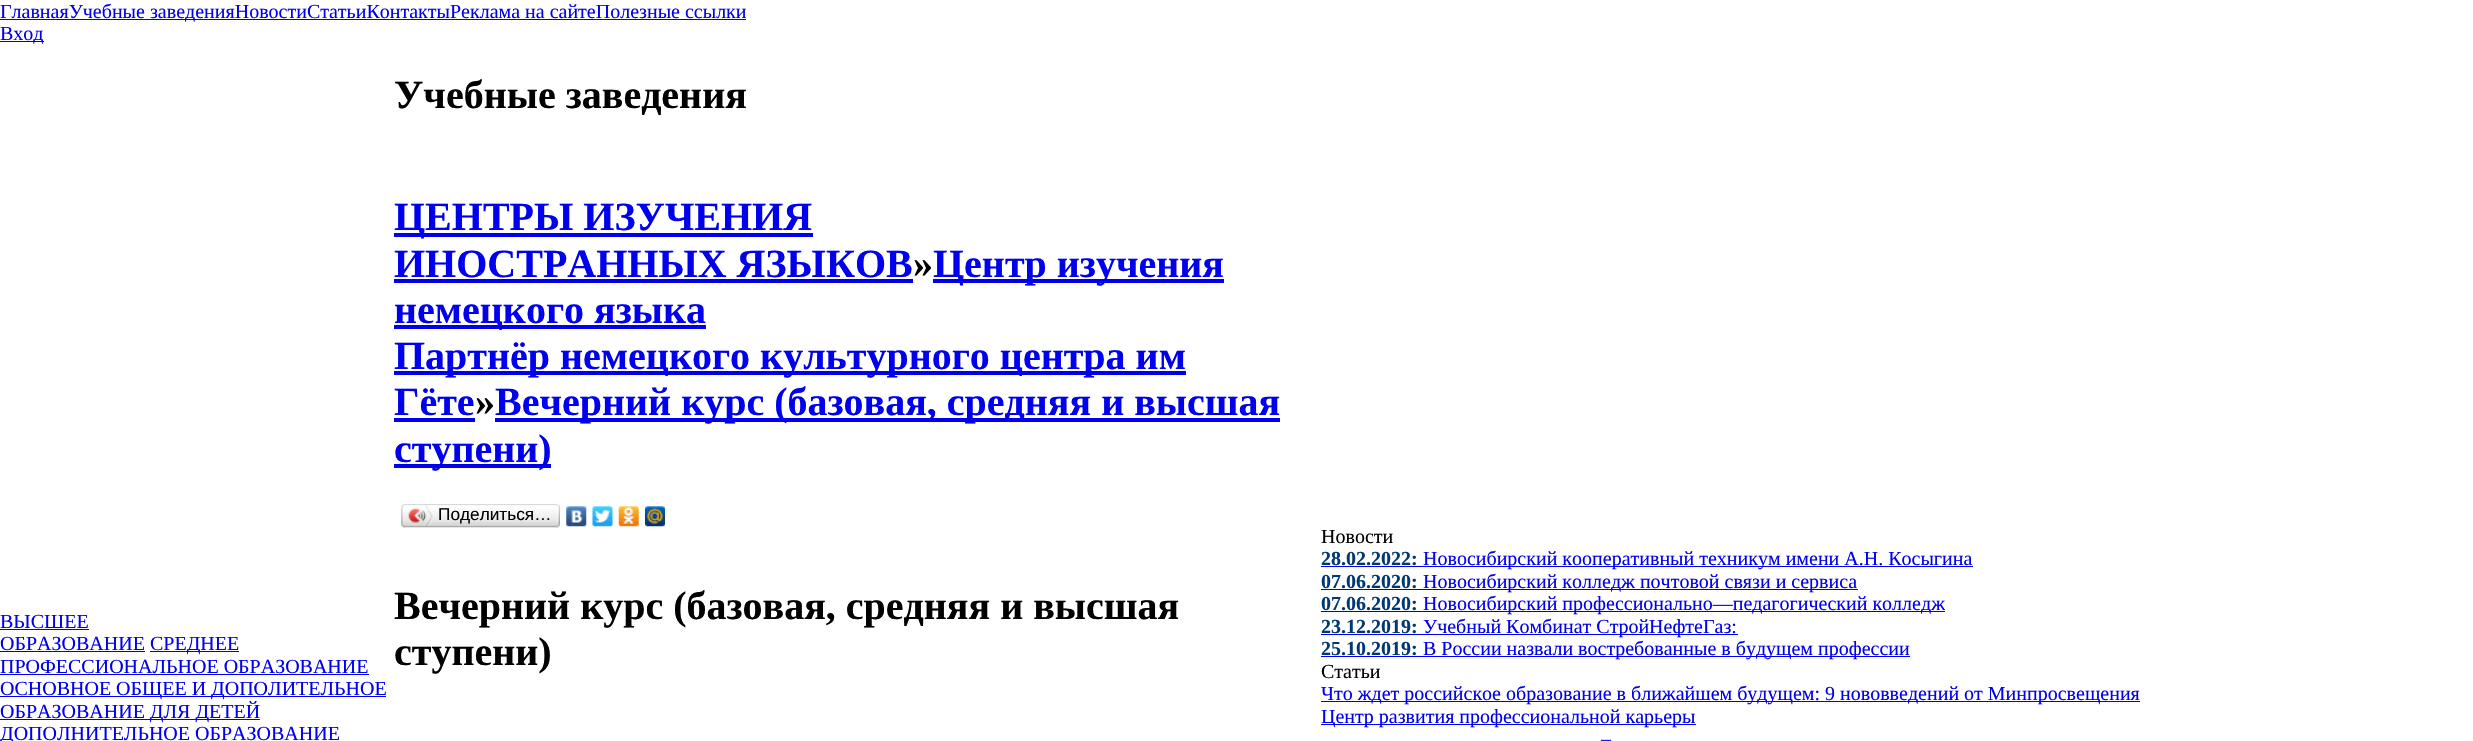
void draw(SkCanvas* canvas) {
	SkPaint paint;
	paint.setAntiAlias(true);
	canvas->clear(0xffffffff);
	paint.setColor(0xff0000ee);
	canvas->drawRect(SkRect::MakeXYWH(0, 19, 746, 1), paint);
	SkFont f1(fontMgr->matchFamilyStyle("Liberation Serif", SkFontStyle::Normal()), 20);
	f1.setSubpixel(true);
	canvas->drawString("ГлавнаяУчебные заведенияНовостиСтатьиКонтактыРеклама на сайтеПолезные ссылки", 0, 18, f1, paint);
	canvas->drawRect(SkRect::MakeXYWH(0, 41, 44, 1), paint);
	canvas->drawString("Вход", 0, 40, f1, paint);
	canvas->drawString("ВЫСШЕЕ", 0, 628, f1, paint);
	canvas->drawRect(SkRect::MakeXYWH(0, 629, 89, 1), paint);
	canvas->drawString("ОБРАЗОВАНИЕ", 0, 650, f1, paint);
	canvas->drawRect(SkRect::MakeXYWH(0, 651, 145, 1), paint);
	canvas->drawRect(SkRect::MakeXYWH(150, 651, 89, 1), paint);
	canvas->drawString("СРЕДНЕЕ", 150, 650, f1, paint);
	canvas->drawString("ПРОФЕССИОНАЛЬНОЕ ОБРАЗОВАНИЕ", 0, 673, f1, paint);
	canvas->drawRect(SkRect::MakeXYWH(0, 674, 369, 1), paint);
	canvas->drawRect(SkRect::MakeXYWH(0, 696, 386, 1), paint);
	canvas->drawString("ОСНОВНОЕ ОБЩЕЕ И ДОПОЛИТЕЛЬНОЕ", 0, 695, f1, paint);
	canvas->drawRect(SkRect::MakeXYWH(0, 719, 260, 1), paint);
	canvas->drawString("ОБРАЗОВАНИЕ ДЛЯ ДЕТЕЙ", 0, 718, f1, paint);
	canvas->drawString("ДОПОЛНИТЕЛЬНОЕ ОБРАЗОВАНИЕ", 0, 740, f1, paint);
	SkFont f2(fontMgr->matchFamilyStyle("Liberation Serif", SkFontStyle::Bold()), 40);
	f2.setSubpixel(true);
	paint.setColor(0xff000000);
	canvas->drawString("Учебные заведения", 394, 108, f2, paint);
	paint.setColor(0xff0000ee);
	canvas->drawRect(SkRect::MakeXYWH(394, 233, 419, 4), paint);
	canvas->drawString("ЦЕНТРЫ ИЗУЧЕНИЯ", 394, 230, f2, paint);
	canvas->drawString("ИНОСТРАННЫХ ЯЗЫКОВ", 394, 277, f2, paint);
	canvas->drawRect(SkRect::MakeXYWH(394, 279, 519, 4), paint);
	paint.setColor(0xff000000);
	canvas->drawString("»", 913, 277, f2, paint);
	paint.setColor(0xff0000ee);
	canvas->drawRect(SkRect::MakeXYWH(933, 279, 291, 4), paint);
	canvas->drawString("Центр изучения", 933, 277, f2, paint);
	canvas->drawRect(SkRect::MakeXYWH(394, 325, 312, 4), paint);
	canvas->drawString("немецкого языка", 394, 323, f2, paint);
	canvas->drawRect(SkRect::MakeXYWH(394, 371, 792, 4), paint);
	canvas->drawString("Партнёр немецкого культурного центра им", 394, 369, f2, paint);
	canvas->drawString("Гёте", 394, 415, f2, paint);
	canvas->drawRect(SkRect::MakeXYWH(394, 418, 81, 4), paint);
	paint.setColor(0xff000000);
	canvas->drawString("»", 475, 415, f2, paint);
	paint.setColor(0xff0000ee);
	canvas->drawRect(SkRect::MakeXYWH(495, 418, 785, 4), paint);
	canvas->drawString("Вечерний курс (базовая, средняя и высшая", 495, 415, f2, paint);
	canvas->drawRect(SkRect::MakeXYWH(394, 464, 157, 4), paint);
	canvas->drawString("ступени)", 394, 462, f2, paint);
	canvas->drawImageRect(SkImages::DeferredFromEncodedData(SkData::MakeFromFileName("img1.png")), SkRect::MakeXYWH(405, 504, 152, 24), SkSamplingOptions());
	canvas->drawImageRect(SkImages::DeferredFromEncodedData(SkData::MakeFromFileName("img2.png")), SkRect::MakeXYWH(401, 503, 4, 25), SkSamplingOptions());
	canvas->drawImageRect(SkImages::DeferredFromEncodedData(SkData::MakeFromFileName("img3.png")), SkRect::MakeXYWH(408, 505, 26, 22), SkSamplingOptions());
	SkFont f3(fontMgr->matchFamilyStyle("Liberation Sans", SkFontStyle::Normal()), 17.25);
	f3.setSubpixel(true);
	paint.setColor(0xff000000);
	canvas->drawString("Поделиться…", 438, 520, f3, paint);
	canvas->drawImageRect(SkImages::DeferredFromEncodedData(SkData::MakeFromFileName("img4.png")), SkRect::MakeXYWH(556, 503, 4, 25), SkSamplingOptions());
	canvas->drawImageRect(SkImages::DeferredFromEncodedData(SkData::MakeFromFileName("img5.png")), SkRect::MakeXYWH(566, 506, 21, 21), SkSamplingOptions());
	canvas->drawImageRect(SkImages::DeferredFromEncodedData(SkData::MakeFromFileName("img6.png")), SkRect::MakeXYWH(592, 506, 21, 21), SkSamplingOptions());
	canvas->drawImageRect(SkImages::DeferredFromEncodedData(SkData::MakeFromFileName("img7.png")), SkRect::MakeXYWH(618, 506, 21, 21), SkSamplingOptions());
	canvas->drawImageRect(SkImages::DeferredFromEncodedData(SkData::MakeFromFileName("img8.png")), SkRect::MakeXYWH(645, 506, 20, 21), SkSamplingOptions());
	canvas->drawString("Вечерний курс (базовая, средняя и высшая", 394, 619, f2, paint);
	canvas->drawString("ступени)", 394, 665, f2, paint);
	canvas->drawString("Новости", 1321, 543, f1, paint);
	SkFont f4(fontMgr->matchFamilyStyle("Liberation Serif", SkFontStyle::Bold()), 20);
	f4.setSubpixel(true);
	paint.setColor(0xff003875);
	canvas->drawString("28.02.2022:", 1321, 565, f4, paint);
	paint.setColor(0xff0000ee);
	canvas->drawRect(SkRect::MakeXYWH(1321, 566, 652, 1), paint);
	canvas->drawString("Новосибирский кооперативный техникум имени А.Н. Косыгина", 1423, 565, f1, paint);
	paint.setColor(0xff003875);
	canvas->drawString("07.06.2020:", 1321, 588, f4, paint);
	paint.setColor(0xff0000ee);
	canvas->drawRect(SkRect::MakeXYWH(1321, 589, 537, 1), paint);
	canvas->drawString("Новосибирский колледж почтовой связи и сервиса", 1423, 588, f1, paint);
	paint.setColor(0xff003875);
	canvas->drawString("07.06.2020:", 1321, 610, f4, paint);
	paint.setColor(0xff0000ee);
	canvas->drawRect(SkRect::MakeXYWH(1321, 611, 624, 1), paint);
	canvas->drawString("Новосибирский профессионально—педагогический колледж", 1423, 610, f1, paint);
	paint.setColor(0xff003875);
	canvas->drawString("23.12.2019:", 1321, 633, f4, paint);
	paint.setColor(0xff0000ee);
	canvas->drawRect(SkRect::MakeXYWH(1321, 634, 417, 1), paint);
	canvas->drawString("Учебный Комбинат СтройНефтеГаз:", 1423, 633, f1, paint);
	paint.setColor(0xff003875);
	canvas->drawString("25.10.2019:", 1321, 655, f4, paint);
	paint.setColor(0xff0000ee);
	canvas->drawRect(SkRect::MakeXYWH(1321, 656, 589, 1), paint);
	canvas->drawString("В России назвали востребованные в будущем профессии", 1423, 655, f1, paint);
	paint.setColor(0xff000000);
	canvas->drawString("Статьи", 1321, 678, f1, paint);
	paint.setColor(0xff0000ee);
	canvas->drawRect(SkRect::MakeXYWH(1321, 701, 819, 1), paint);
	canvas->drawString("Что ждет российское образование в ближайшем будущем: 9 нововведений от Минпросвещения", 1321, 700, f1, paint);
	canvas->drawRect(SkRect::MakeXYWH(1321, 724, 375, 1), paint);
	canvas->drawString("Центр развития профессиональной карьеры", 1321, 723, f1, paint);
	canvas->drawString("–", 1601, 745, f1, paint);
}
